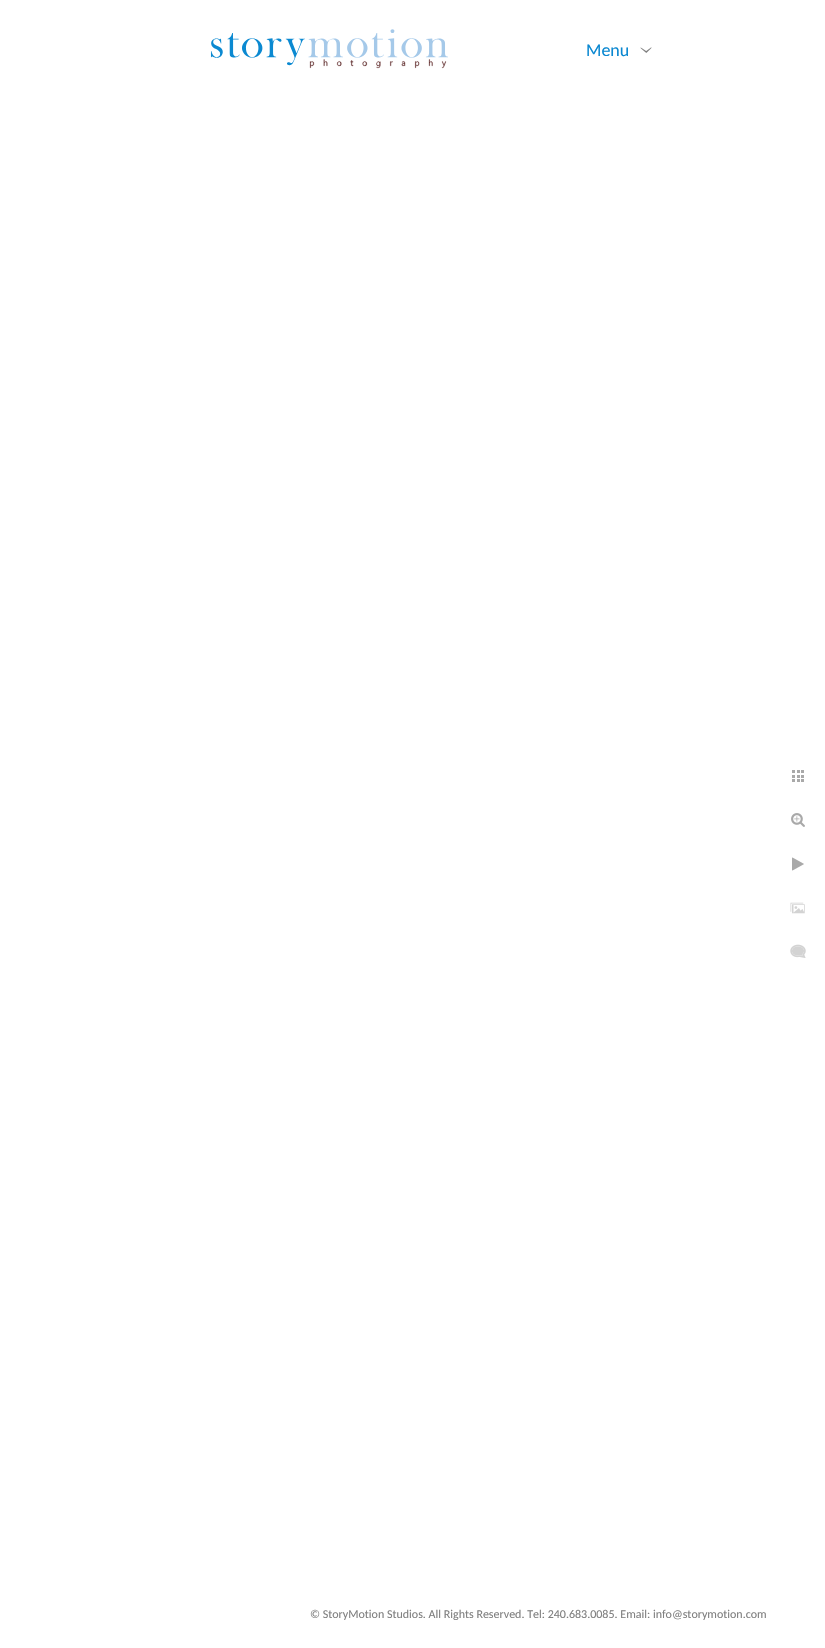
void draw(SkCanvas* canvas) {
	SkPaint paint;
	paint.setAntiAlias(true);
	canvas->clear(0xffffffff);
	canvas->drawImageRect(SkImages::DeferredFromEncodedData(SkData::MakeFromFileName("img1.png")), SkRect::MakeXYWH(210, 29, 238, 40), SkSamplingOptions());
	SkFont f1(fontMgr->matchFamilyStyle("Carlito", SkFontStyle::Normal()), 18);
	f1.setSubpixel(true);
	paint.setColor(0xff0b88d1);
	canvas->drawString("Menu", 586, 56, f1, paint);
	canvas->drawImageRect(SkImages::DeferredFromEncodedData(SkData::MakeFromFileName("img2.png")), SkRect::MakeXYWH(640, 47, 12, 6), SkSamplingOptions());
	canvas->drawImageRect(SkImages::DeferredFromEncodedData(SkData::MakeFromFileName("img3.png")), SkRect::MakeXYWH(792, 770, 12, 12), SkSamplingOptions());
	canvas->drawImageRect(SkImages::DeferredFromEncodedData(SkData::MakeFromFileName("img4.png")), SkRect::MakeXYWH(791, 813, 14, 14), SkSamplingOptions());
	canvas->drawImageRect(SkImages::DeferredFromEncodedData(SkData::MakeFromFileName("img5.png")), SkRect::MakeXYWH(792, 857, 12, 14), SkSamplingOptions());
	canvas->drawImageRect(SkImages::DeferredFromEncodedData(SkData::MakeFromFileName("img6.png")), SkRect::MakeXYWH(790, 902, 15, 12), SkSamplingOptions());
	canvas->drawImageRect(SkImages::DeferredFromEncodedData(SkData::MakeFromFileName("img7.png")), SkRect::MakeXYWH(790, 944, 16, 14), SkSamplingOptions());
	SkFont f2(fontMgr->matchFamilyStyle("Carlito", SkFontStyle::Normal()), 12);
	f2.setSubpixel(true);
	paint.setColor(0xff808080);
	canvas->drawString("© StoryMotion Studios. All Rights Reserved. Tel: 240.683.0085. Email: info@storymotion.com", 310, 1618, f2, paint);
}
